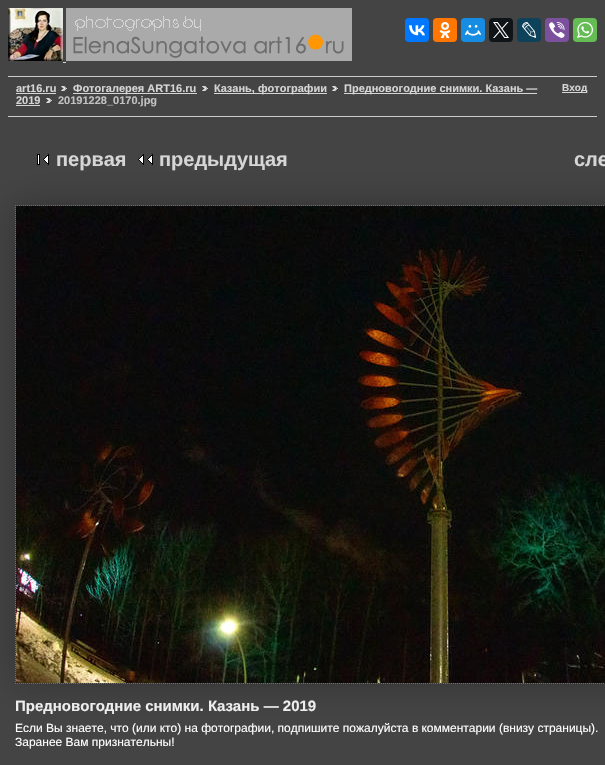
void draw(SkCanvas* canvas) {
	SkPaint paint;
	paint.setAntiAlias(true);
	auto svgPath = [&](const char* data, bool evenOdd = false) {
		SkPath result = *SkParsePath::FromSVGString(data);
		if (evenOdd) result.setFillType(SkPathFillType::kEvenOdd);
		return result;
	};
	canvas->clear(0xff444444);
	canvas->drawImageRect(SkImages::DeferredFromEncodedData(SkData::MakeFromFileName("img1.png")), SkRect::MakeXYWH(8, 8, 55, 53), SkSamplingOptions());
	canvas->drawImageRect(SkImages::DeferredFromEncodedData(SkData::MakeFromFileName("img2.png")), SkRect::MakeXYWH(66, 8, 286, 53), SkSamplingOptions());
	paint.setColor(0xff0077ff);
	canvas->drawRoundRect(SkRect::MakeXYWH(405, 18, 24, 24), 4, 4, paint);
	canvas->drawImageRect(SkImages::DeferredFromEncodedData(SkData::MakeFromFileName("img3.png")), SkRect::MakeXYWH(409, 25, 16, 11), SkSamplingOptions());
	paint.setColor(0xffff7700);
	canvas->drawRoundRect(SkRect::MakeXYWH(433, 18, 24, 24), 4, 4, paint);
	canvas->drawImageRect(SkImages::DeferredFromEncodedData(SkData::MakeFromFileName("img4.png")), SkRect::MakeXYWH(439, 22, 12, 16), SkSamplingOptions());
	paint.setColor(0xff168de2);
	canvas->drawRoundRect(SkRect::MakeXYWH(461, 18, 24, 24), 4, 4, paint);
	canvas->drawImageRect(SkImages::DeferredFromEncodedData(SkData::MakeFromFileName("img5.png")), SkRect::MakeXYWH(465, 25, 16, 11), SkSamplingOptions());
	paint.setColor(0xff0f1419);
	canvas->drawRoundRect(SkRect::MakeXYWH(489, 18, 24, 24), 4, 4, paint);
	canvas->drawImageRect(SkImages::DeferredFromEncodedData(SkData::MakeFromFileName("img6.png")), SkRect::MakeXYWH(493, 22, 16, 16), SkSamplingOptions());
	paint.setColor(0xff0d425a);
	canvas->drawRoundRect(SkRect::MakeXYWH(517, 18, 24, 24), 4, 4, paint);
	canvas->drawImageRect(SkImages::DeferredFromEncodedData(SkData::MakeFromFileName("img7.png")), SkRect::MakeXYWH(522, 22, 15, 16), SkSamplingOptions());
	paint.setColor(0xff7b519d);
	canvas->drawRoundRect(SkRect::MakeXYWH(545, 18, 24, 24), 4, 4, paint);
	canvas->drawImageRect(SkImages::DeferredFromEncodedData(SkData::MakeFromFileName("img8.png")), SkRect::MakeXYWH(549, 22, 16, 16), SkSamplingOptions());
	paint.setColor(0xff65bc54);
	canvas->drawRoundRect(SkRect::MakeXYWH(573, 18, 24, 24), 4, 4, paint);
	canvas->drawImageRect(SkImages::DeferredFromEncodedData(SkData::MakeFromFileName("img9.png")), SkRect::MakeXYWH(577, 22, 16, 16), SkSamplingOptions());
	paint.setColor(0xffd6d6d6);
	canvas->drawRect(SkRect::MakeXYWH(63, 62, 3, 1), paint);
	paint.setColor(0xffcccccc);
	canvas->drawRect(SkRect::MakeXYWH(8, 76, 589, 1), paint);
	canvas->drawRect(SkRect::MakeXYWH(8, 116, 589, 1), paint);
	SkFont f1(fontMgr->matchFamilyStyle("Liberation Sans", SkFontStyle::Bold()), 11);
	f1.setSubpixel(true);
	paint.setColor(0xffd6d6d6);
	canvas->drawString("art16.ru", 16, 92, f1, paint);
	canvas->drawRect(SkRect::MakeXYWH(16, 93, 40, 1), paint);
	canvas->drawImageRect(SkImages::DeferredFromEncodedData(SkData::MakeFromFileName("img10.png")), SkRect::MakeXYWH(61, 86, 6, 5), SkSamplingOptions());
	canvas->drawRect(SkRect::MakeXYWH(73, 93, 124, 1), paint);
	canvas->drawString("Фотогалерея ART16.ru", 73, 92, f1, paint);
	canvas->drawImageRect(SkImages::DeferredFromEncodedData(SkData::MakeFromFileName("img10.png")), SkRect::MakeXYWH(202, 86, 6, 5), SkSamplingOptions());
	canvas->drawRect(SkRect::MakeXYWH(214, 93, 113, 1), paint);
	canvas->drawString("Казань, фотографии", 214, 92, f1, paint);
	canvas->drawImageRect(SkImages::DeferredFromEncodedData(SkData::MakeFromFileName("img10.png")), SkRect::MakeXYWH(332, 86, 6, 5), SkSamplingOptions());
	canvas->drawRect(SkRect::MakeXYWH(344, 93, 193, 1), paint);
	canvas->drawString("Предновогодние снимки. Казань —", 344, 92, f1, paint);
	canvas->drawString("2019", 16, 104, f1, paint);
	canvas->drawRect(SkRect::MakeXYWH(16, 105, 24, 1), paint);
	canvas->drawImageRect(SkImages::DeferredFromEncodedData(SkData::MakeFromFileName("img10.png")), SkRect::MakeXYWH(46, 98, 6, 5), SkSamplingOptions());
	paint.setColor(0xffc2c2c2);
	canvas->drawString("20191228_0170.jpg", 58, 104, f1, paint);
	paint.setColor(0xffd6d6d6);
	canvas->drawRect(SkRect::MakeXYWH(562, 92, 25, 1), paint);
	SkFont f2(fontMgr->matchFamilyStyle("Liberation Sans", SkFontStyle::Bold()), 10);
	f2.setSubpixel(true);
	canvas->drawString("Вход", 562, 91, f2, paint);
	canvas->drawImageRect(SkImages::DeferredFromEncodedData(SkData::MakeFromFileName("img12.png")), SkRect::MakeXYWH(37, 154, 12, 11), SkSamplingOptions());
	canvas->drawImageRect(SkImages::DeferredFromEncodedData(SkData::MakeFromFileName("img13.png")), SkRect::MakeXYWH(138, 154, 15, 11), SkSamplingOptions());
	paint.setColor(0xff323232);
	paint.setMaskFilter(SkMaskFilter::MakeBlur(kNormal_SkBlurStyle, 18));
	canvas->drawRect(SkRect::MakeXYWH(15, 205, 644, 479), paint);
	paint.setMaskFilter(nullptr);
	paint.setStroke(true);
	paint.setStrokeWidth(1);
	paint.setColor(0xff6d6c6c);
	paint.setPathEffect(SkDashPathEffect::Make({{1, 1}}, 0));
	canvas->drawPath(svgPath("M15 205.5H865"), paint);
	paint.setPathEffect(nullptr);
	paint.setPathEffect(SkDashPathEffect::Make({{1, 1}}, 0));
	canvas->drawPath(svgPath("M15 683.5H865"), paint);
	paint.setPathEffect(nullptr);
	paint.setPathEffect(SkDashPathEffect::Make({{1, 1}}, 0));
	canvas->drawPath(svgPath("M15.5 205V684"), paint);
	paint.setPathEffect(nullptr);
	canvas->drawImageRect(SkImages::DeferredFromEncodedData(SkData::MakeFromFileName("img11.png")), SkRect::MakeXYWH(16, 206, 589, 477), SkSamplingOptions());
	SkFont f3(fontMgr->matchFamilyStyle("Liberation Sans", SkFontStyle::Bold()), 20);
	f3.setSubpixel(true);
	paint.setStroke(false);
	paint.setColor(0xffd6d6d6);
	canvas->drawString("первая", 56, 166, f3, paint);
	canvas->drawString("предыдущая", 159, 166, f3, paint);
	canvas->drawString("сле", 574, 166, f3, paint);
	SkFont f4(fontMgr->matchFamilyStyle("Liberation Sans", SkFontStyle::Bold()), 15);
	f4.setSubpixel(true);
	paint.setColor(0xffeeeeee);
	canvas->drawString("Предновогодние снимки. Казань — 2019", 15, 711, f4, paint);
	SkFont f5(fontMgr->matchFamilyStyle("Liberation Sans", SkFontStyle::Normal()), 12);
	f5.setSubpixel(true);
	paint.setColor(0xffffffff);
	canvas->drawString("Если Вы знаете, что (или кто) на фотографии, подпишите пожалуйста в комментарии (внизу страницы).", 15, 732, f5, paint);
	canvas->drawString("Заранее Вам признательны!", 15, 746, f5, paint);
}
